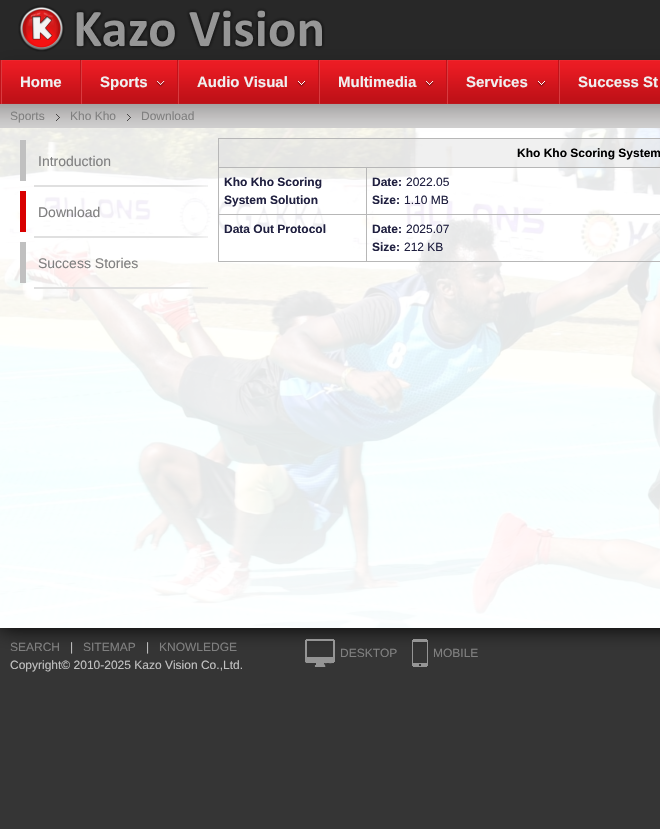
void draw(SkCanvas* canvas) {
	SkPaint paint;
	paint.setAntiAlias(true);
	canvas->clear(0xff353535);
	paint.setColor(0xff000000);
	paint.setMaskFilter(SkMaskFilter::MakeBlur(kNormal_SkBlurStyle, 10));
	canvas->drawRect(SkRect::MakeXYWH(0, 0, 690, 628), paint);
	paint.setMaskFilter(nullptr);
	paint.setColor(0xffffffff);
	canvas->drawRect(SkRect::MakeXYWH(0, 60, 660, 568), paint);
	paint.setColor(0xff282828);
	canvas->drawRect(SkRect::MakeXYWH(0, 0, 660, 60), paint);
	paint.setColor(0x33000000);
	paint.setMaskFilter(SkMaskFilter::MakeBlur(kNormal_SkBlurStyle, 10));
	canvas->drawRect(SkRect::MakeXYWH(0, 64, 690, 44), paint);
	paint.setMaskFilter(nullptr);
	canvas->drawImageRect(SkImages::DeferredFromEncodedData(SkData::MakeFromFileName("img1.png")), SkRect::MakeXYWH(18, 5, 307, 47), SkSamplingOptions());
	canvas->drawImageRect(SkImages::DeferredFromEncodedData(SkData::MakeFromFileName("img2.png")), SkRect::MakeXYWH(2, 60, 658, 44), SkSamplingOptions());
	paint.setColor(0xffc01219);
	canvas->drawRect(SkRect::MakeXYWH(0, 60, 1, 44), paint);
	canvas->drawRect(SkRect::MakeXYWH(80, 60, 1, 44), paint);
	paint.setColor(0xffd93b40);
	canvas->drawRect(SkRect::MakeXYWH(1, 60, 1, 44), paint);
	SkFont f1(fontMgr->matchFamilyStyle("Liberation Sans", SkFontStyle::Bold()), 15);
	f1.setSubpixel(true);
	paint.setColor(0xfff0f0f0);
	canvas->drawString("Home", 20, 87, f1, paint);
	canvas->drawImageRect(SkImages::DeferredFromEncodedData(SkData::MakeFromFileName("img3.png")), SkRect::MakeXYWH(156, 81, 9, 6), SkSamplingOptions());
	paint.setColor(0xffc01219);
	canvas->drawRect(SkRect::MakeXYWH(177, 60, 1, 44), paint);
	paint.setColor(0xffd93b40);
	canvas->drawRect(SkRect::MakeXYWH(81, 60, 1, 44), paint);
	paint.setColor(0xfff0f0f0);
	canvas->drawString("Sports", 100, 87, f1, paint);
	canvas->drawImageRect(SkImages::DeferredFromEncodedData(SkData::MakeFromFileName("img4.png")), SkRect::MakeXYWH(297, 81, 9, 6), SkSamplingOptions());
	paint.setColor(0xffc01219);
	canvas->drawRect(SkRect::MakeXYWH(318, 60, 1, 44), paint);
	paint.setColor(0xffd93b40);
	canvas->drawRect(SkRect::MakeXYWH(178, 60, 1, 44), paint);
	paint.setColor(0xfff0f0f0);
	canvas->drawString("Audio Visual", 197, 87, f1, paint);
	canvas->drawImageRect(SkImages::DeferredFromEncodedData(SkData::MakeFromFileName("img5.png")), SkRect::MakeXYWH(425, 81, 9, 6), SkSamplingOptions());
	paint.setColor(0xffc01219);
	canvas->drawRect(SkRect::MakeXYWH(446, 60, 1, 44), paint);
	paint.setColor(0xffd93b40);
	canvas->drawRect(SkRect::MakeXYWH(319, 60, 1, 44), paint);
	paint.setColor(0xfff0f0f0);
	canvas->drawString("Multimedia", 338, 87, f1, paint);
	canvas->drawImageRect(SkImages::DeferredFromEncodedData(SkData::MakeFromFileName("img4.png")), SkRect::MakeXYWH(537, 81, 9, 6), SkSamplingOptions());
	paint.setColor(0xffc01219);
	canvas->drawRect(SkRect::MakeXYWH(558, 60, 1, 44), paint);
	paint.setColor(0xffd93b40);
	canvas->drawRect(SkRect::MakeXYWH(447, 60, 1, 44), paint);
	paint.setColor(0xfff0f0f0);
	canvas->drawString("Services", 466, 87, f1, paint);
	paint.setColor(0xffd93b40);
	canvas->drawRect(SkRect::MakeXYWH(559, 60, 1, 44), paint);
	paint.setColor(0xfff0f0f0);
	canvas->drawString("Success St", 578, 87, f1, paint);
	canvas->drawImageRect(SkImages::DeferredFromEncodedData(SkData::MakeFromFileName("img6.png")), SkRect::MakeXYWH(0, 104, 660, 24), SkSamplingOptions());
	SkFont f2(fontMgr->matchFamilyStyle("Liberation Sans", SkFontStyle::Normal()), 12);
	f2.setSubpixel(true);
	paint.setColor(0xff808080);
	canvas->drawString("Sports", 10, 120, f2, paint);
	canvas->drawImageRect(SkImages::DeferredFromEncodedData(SkData::MakeFromFileName("img7.png")), SkRect::MakeXYWH(56, 114, 4, 7), SkSamplingOptions());
	canvas->drawString("Kho Kho", 70, 120, f2, paint);
	canvas->drawImageRect(SkImages::DeferredFromEncodedData(SkData::MakeFromFileName("img7.png")), SkRect::MakeXYWH(127, 114, 4, 7), SkSamplingOptions());
	canvas->drawString("Download", 141, 120, f2, paint);
	canvas->drawImageRect(SkImages::DeferredFromEncodedData(SkData::MakeFromFileName("img8.png")), SkRect::MakeXYWH(0, 128, 660, 500), SkSamplingOptions());
	canvas->drawImageRect(SkImages::DeferredFromEncodedData(SkData::MakeFromFileName("img9.png")), SkRect::MakeXYWH(20, 140, 188, 47), SkSamplingOptions());
	SkFont f3(fontMgr->matchFamilyStyle("Liberation Sans", SkFontStyle::Normal()), 14);
	f3.setSubpixel(true);
	canvas->drawString("Introduction", 38, 166, f3, paint);
	canvas->drawImageRect(SkImages::DeferredFromEncodedData(SkData::MakeFromFileName("img10.png")), SkRect::MakeXYWH(20, 191, 188, 47), SkSamplingOptions());
	canvas->drawString("Download", 38, 217, f3, paint);
	canvas->drawImageRect(SkImages::DeferredFromEncodedData(SkData::MakeFromFileName("img11.png")), SkRect::MakeXYWH(20, 242, 188, 47), SkSamplingOptions());
	canvas->drawString("Success Stories", 38, 268, f3, paint);
	paint.setColor(0x78dfdfdf);
	canvas->drawRect(SkRect::MakeXYWH(219, 139, 441, 28), paint);
	paint.setColor(0xffb7b7b7);
	canvas->drawRect(SkRect::MakeXYWH(218, 138, 442, 1), paint);
	canvas->drawRect(SkRect::MakeXYWH(366, 167, 294, 1), paint);
	canvas->drawRect(SkRect::MakeXYWH(366, 214, 294, 1), paint);
	canvas->drawRect(SkRect::MakeXYWH(366, 261, 294, 1), paint);
	canvas->drawRect(SkRect::MakeXYWH(366, 214, 1, 48), paint);
	canvas->drawRect(SkRect::MakeXYWH(218, 214, 149, 1), paint);
	canvas->drawRect(SkRect::MakeXYWH(366, 167, 1, 48), paint);
	canvas->drawRect(SkRect::MakeXYWH(218, 167, 149, 1), paint);
	canvas->drawRect(SkRect::MakeXYWH(218, 261, 149, 1), paint);
	canvas->drawRect(SkRect::MakeXYWH(218, 214, 1, 48), paint);
	canvas->drawRect(SkRect::MakeXYWH(218, 167, 1, 48), paint);
	canvas->drawRect(SkRect::MakeXYWH(218, 138, 1, 30), paint);
	SkFont f4(fontMgr->matchFamilyStyle("Liberation Sans", SkFontStyle::Bold()), 12);
	f4.setSubpixel(true);
	paint.setColor(0xff000000);
	canvas->drawString("Kho Kho Scoring System", 517, 157, f4, paint);
	paint.setColor(0xff202040);
	canvas->drawString("Kho Kho Scoring", 224, 186, f4, paint);
	canvas->drawString("System Solution", 224, 204, f4, paint);
	canvas->drawString("Date:", 372, 186, f4, paint);
	canvas->drawString("2022.05", 406, 186, f2, paint);
	canvas->drawString("Size:", 372, 204, f4, paint);
	canvas->drawString("1.10 MB", 404, 204, f2, paint);
	canvas->drawString("Data Out Protocol", 224, 233, f4, paint);
	canvas->drawString("Date:", 372, 233, f4, paint);
	canvas->drawString("2025.07", 406, 233, f2, paint);
	canvas->drawString("Size:", 372, 251, f4, paint);
	canvas->drawString("212 KB", 404, 251, f2, paint);
	paint.setColor(0xff808080);
	canvas->drawString("SEARCH", 10, 651, f2, paint);
	paint.setColor(0xffc1c1c1);
	canvas->drawString("|", 70, 651, f2, paint);
	paint.setColor(0xff808080);
	canvas->drawString("SITEMAP", 83, 651, f2, paint);
	paint.setColor(0xffc1c1c1);
	canvas->drawString("|", 146, 651, f2, paint);
	paint.setColor(0xff808080);
	canvas->drawString("KNOWLEDGE", 159, 651, f2, paint);
	paint.setColor(0xffc1c1c1);
	canvas->drawString("Copyright© 2010-2025 Kazo Vision Co.,Ltd.", 10, 669, f2, paint);
	canvas->drawImageRect(SkImages::DeferredFromEncodedData(SkData::MakeFromFileName("img12.png")), SkRect::MakeXYWH(305, 639, 30, 28), SkSamplingOptions());
	paint.setColor(0xff808080);
	canvas->drawString("DESKTOP", 340, 657, f2, paint);
	canvas->drawImageRect(SkImages::DeferredFromEncodedData(SkData::MakeFromFileName("img13.png")), SkRect::MakeXYWH(412, 639, 16, 28), SkSamplingOptions());
	canvas->drawString("MOBILE", 433, 657, f2, paint);
}
